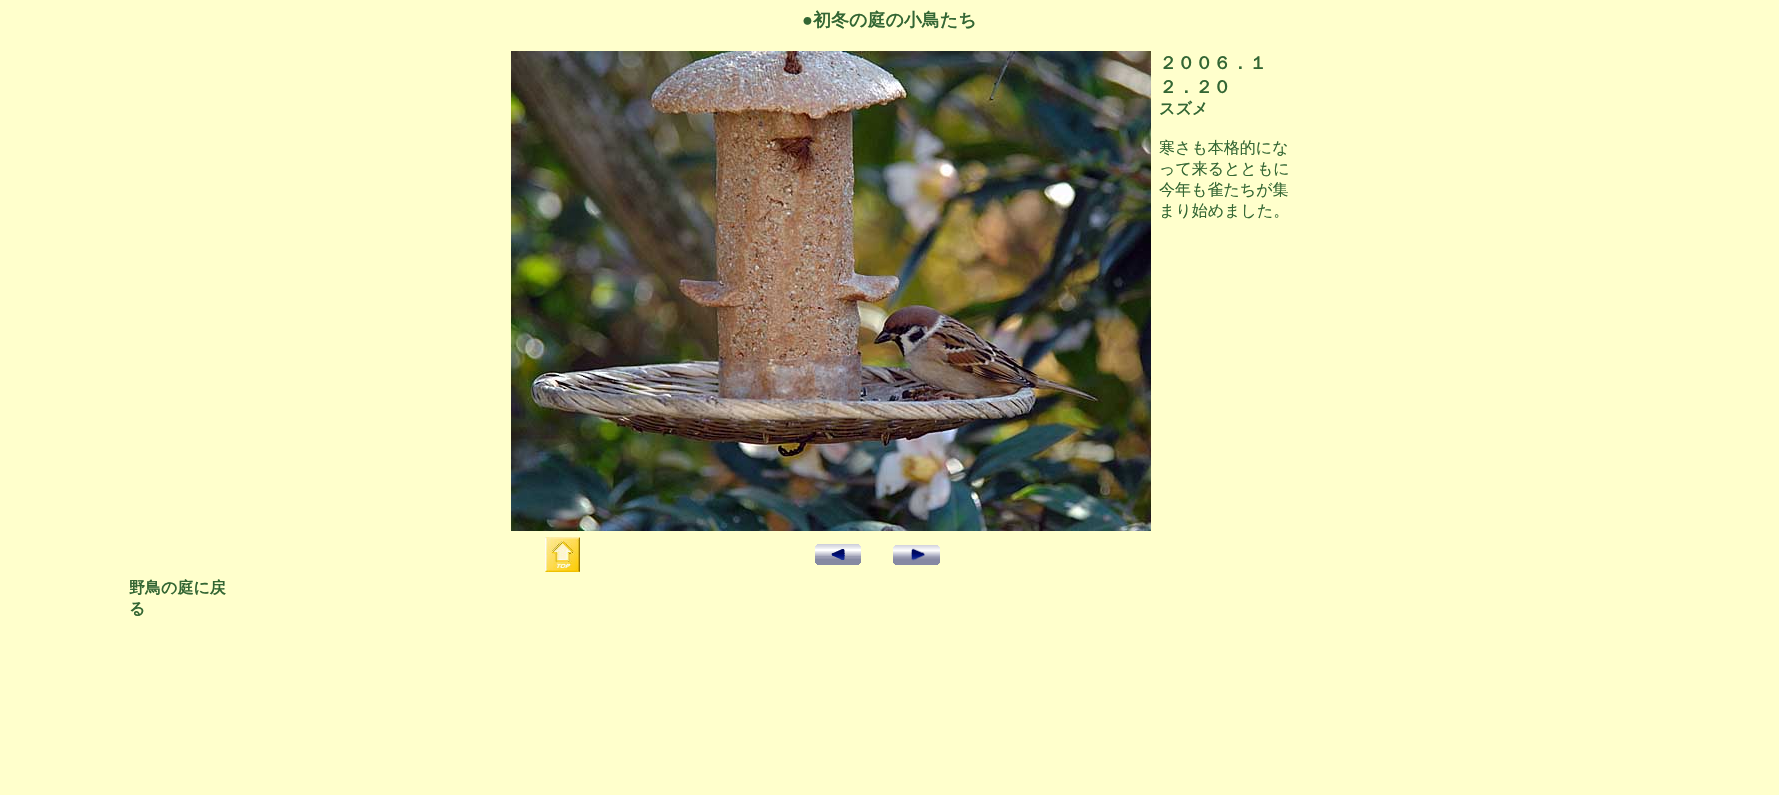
void draw(SkCanvas* canvas) {
	SkPaint paint;
	paint.setAntiAlias(true);
	canvas->clear(0xffffffcc);
	SkFont f1(fontMgr->matchFamilyStyle("Liberation Serif", SkFontStyle::Normal()), 18);
	f1.setSubpixel(true);
	paint.setColor(0xff336633);
	canvas->drawString("●", 802, 26, f1, paint);
	SkFont f2(fontMgr->matchFamilyStyle("WenQuanYi Zen Hei", SkFontStyle::Bold()), 18);
	f2.setSubpixel(true);
	canvas->drawString("初冬の庭の小鳥たち", 813, 26, f2, paint);
	canvas->drawImageRect(SkImages::DeferredFromEncodedData(SkData::MakeFromFileName("img1.png")), SkRect::MakeXYWH(511, 51, 640, 480), SkSamplingOptions());
	canvas->drawString("２００６．１", 1159, 69, f2, paint);
	canvas->drawString("２．２０", 1159, 93, f2, paint);
	SkFont f3(fontMgr->matchFamilyStyle("WenQuanYi Zen Hei", SkFontStyle::Bold()), 16);
	f3.setSubpixel(true);
	canvas->drawString("スズメ", 1159, 114, f3, paint);
	SkFont f4(fontMgr->matchFamilyStyle("WenQuanYi Zen Hei", SkFontStyle(500, SkFontStyle::kNormal_Width, SkFontStyle::kUpright_Slant)), 16);
	f4.setSubpixel(true);
	canvas->drawString("寒さも本格的にな", 1159, 153, f4, paint);
	canvas->drawString("って来るとともに", 1159, 174, f4, paint);
	canvas->drawString("今年も雀たちが集", 1159, 195, f4, paint);
	canvas->drawString("まり始めました。", 1159, 216, f4, paint);
	canvas->drawImageRect(SkImages::DeferredFromEncodedData(SkData::MakeFromFileName("img2.png")), SkRect::MakeXYWH(545, 537, 35, 35), SkSamplingOptions());
	canvas->drawImageRect(SkImages::DeferredFromEncodedData(SkData::MakeFromFileName("img3.png")), SkRect::MakeXYWH(815, 544, 46, 21), SkSamplingOptions());
	canvas->drawImageRect(SkImages::DeferredFromEncodedData(SkData::MakeFromFileName("img4.png")), SkRect::MakeXYWH(893, 545, 47, 20), SkSamplingOptions());
	canvas->drawString("野鳥の庭に戻", 129, 593, f3, paint);
	canvas->drawString("る", 129, 614, f3, paint);
}
